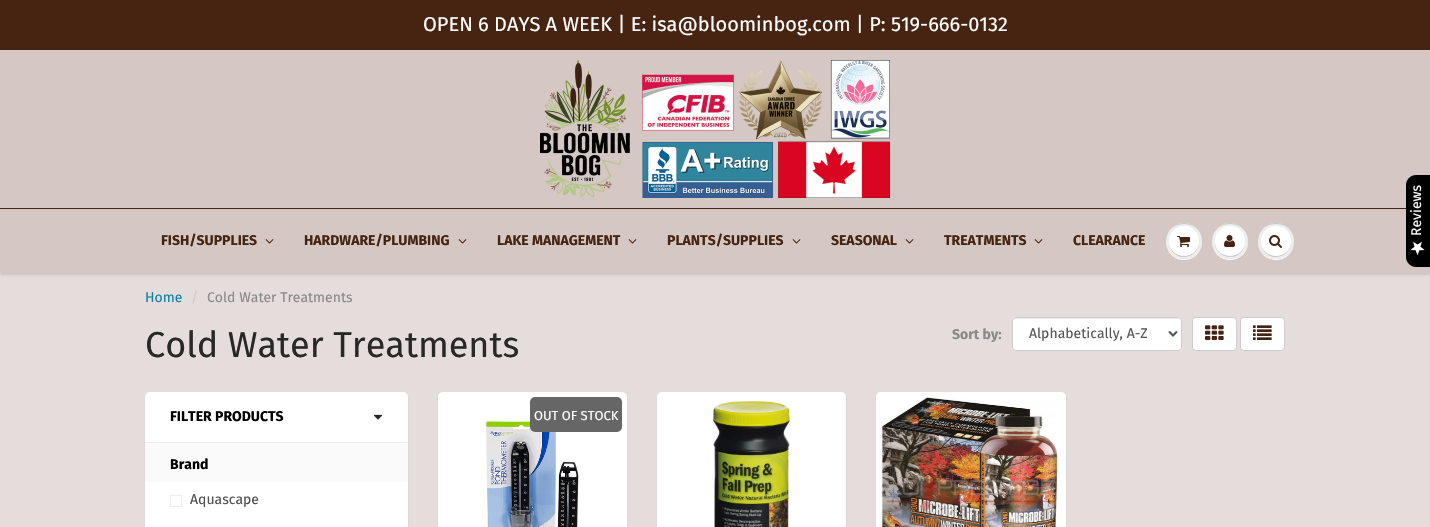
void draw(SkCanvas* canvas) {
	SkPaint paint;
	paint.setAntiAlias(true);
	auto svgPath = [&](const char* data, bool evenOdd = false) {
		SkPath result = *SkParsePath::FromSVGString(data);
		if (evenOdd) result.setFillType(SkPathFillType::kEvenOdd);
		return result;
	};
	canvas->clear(0xff462411);
	SkFont f1(fontMgr->matchFamilyStyle("Fira Sans", SkFontStyle::Normal()), 20);
	f1.setSubpixel(true);
	paint.setColor(0xffffffff);
	canvas->drawString("OPEN 6 DAYS A WEEK | E: isa@bloominbog.com | P: 519-666-0132", 423, 31, f1, paint);
	paint.setColor(0xffd5c8c4);
	canvas->drawRect(SkRect::MakeXYWH(0, 50, 1430, 158), paint);
	canvas->drawImageRect(SkImages::DeferredFromEncodedData(SkData::MakeFromFileName("img1.png")), SkRect::MakeXYWH(540, 60, 350, 138), SkSamplingOptions());
	paint.setColor(0xffe5dddb);
	canvas->drawRect(SkRect::MakeXYWH(0, 273, 1430, 254), paint);
	paint.setColor(0x1f0b191c);
	paint.setMaskFilter(SkMaskFilter::MakeBlur(kNormal_SkBlurStyle, 1));
	canvas->drawRect(SkRect::MakeXYWH(0, 210, 1430, 65), paint);
	paint.setMaskFilter(nullptr);
	paint.setColor(0xffd5c8c4);
	canvas->drawRect(SkRect::MakeXYWH(0, 209, 1430, 64), paint);
	SkFont f2(fontMgr->matchFamilyStyle("Fira Sans", SkFontStyle::Bold()), 14);
	f2.setSubpixel(true);
	paint.setColor(0xff462411);
	canvas->drawString("FISH/SUPPLIES", 161, 245, f2, paint);
	canvas->drawImageRect(SkImages::DeferredFromEncodedData(SkData::MakeFromFileName("img2.png")), SkRect::MakeXYWH(265, 239, 9, 5), SkSamplingOptions());
	canvas->drawString("HARDWARE/PLUMBING", 304, 245, f2, paint);
	canvas->drawImageRect(SkImages::DeferredFromEncodedData(SkData::MakeFromFileName("img2.png")), SkRect::MakeXYWH(458, 239, 9, 5), SkSamplingOptions());
	canvas->drawString("LAKE MANAGEMENT", 497, 245, f2, paint);
	canvas->drawImageRect(SkImages::DeferredFromEncodedData(SkData::MakeFromFileName("img2.png")), SkRect::MakeXYWH(628, 239, 9, 5), SkSamplingOptions());
	canvas->drawString("PLANTS/SUPPLIES", 667, 245, f2, paint);
	canvas->drawImageRect(SkImages::DeferredFromEncodedData(SkData::MakeFromFileName("img2.png")), SkRect::MakeXYWH(792, 239, 9, 5), SkSamplingOptions());
	canvas->drawString("SEASONAL", 831, 245, f2, paint);
	canvas->drawImageRect(SkImages::DeferredFromEncodedData(SkData::MakeFromFileName("img2.png")), SkRect::MakeXYWH(905, 239, 9, 5), SkSamplingOptions());
	canvas->drawString("TREATMENTS", 944, 245, f2, paint);
	canvas->drawImageRect(SkImages::DeferredFromEncodedData(SkData::MakeFromFileName("img2.png")), SkRect::MakeXYWH(1034, 239, 9, 5), SkSamplingOptions());
	canvas->drawString("CLEARANCE", 1073, 245, f2, paint);
	paint.setColor(0xffffffff);
	canvas->drawPath(svgPath("M1202 241.5C1201.5 251 1194 259 1184 259C1174 259 1166.5 251 1166 241.5C1166 245 1167 249 1169 252C1179 267 1202.5 259.5 1202 241.5Z"), paint);
	paint.setColor(0xffedefef);
	canvas->drawCircle(1184, 241, 18, paint);
	paint.setColor(0xffc9cbcb);
	canvas->drawPath(svgPath("M1184 224C1196 224 1202 232.5 1202 241.5C1202 238 1201 234 1199 231C1189 216 1165.5 223.5 1166 241.5C1166 232.5 1172 224 1184 224Z"), paint);
	canvas->drawPath(svgPath("M1199 241.5C1198.5 260.5 1169.5 260.5 1169 241.5C1169 244.5 1170 248 1171.5 250.5C1180 263 1199.5 256.5 1199 241.5Z"), paint);
	paint.setColor(0xffffffff);
	canvas->drawCircle(1184, 241, 15, paint);
	canvas->drawPath(svgPath("M1184 227C1194 227 1199 234 1199 241.5C1199 238.5 1198 235 1196.5 232.5C1188 220 1168.5 226.5 1169 241.5C1169 234 1174 227 1184 227Z"), paint);
	canvas->drawImageRect(SkImages::DeferredFromEncodedData(SkData::MakeFromFileName("img3.png")), SkRect::MakeXYWH(1177, 236, 13, 11), SkSamplingOptions());
	canvas->drawPath(svgPath("M1248 241.5C1247.5 251 1240 259 1230 259C1220 259 1212.5 251 1212 241.5C1212 245 1213 249 1215 252C1225 267 1248.5 259.5 1248 241.5Z"), paint);
	paint.setColor(0xffedefef);
	canvas->drawCircle(1230, 241, 18, paint);
	paint.setColor(0xffc9cbcb);
	canvas->drawPath(svgPath("M1230 224C1242 224 1248 232.5 1248 241.5C1248 238 1247 234 1245 231C1235 216 1211.5 223.5 1212 241.5C1212 232.5 1218 224 1230 224Z"), paint);
	canvas->drawPath(svgPath("M1245 241.5C1244.5 260.5 1215.5 260.5 1215 241.5C1214.5 256.5 1234 263 1242.5 250.5C1244 248 1245 244.5 1245 241.5Z"), paint);
	paint.setColor(0xffffffff);
	canvas->drawCircle(1230, 241, 15, paint);
	canvas->drawPath(svgPath("M1230 227C1240 227 1245 234 1245 241.5C1245 238.5 1244 235 1242.5 232.5C1234 220 1214.5 226.5 1215 241.5C1215 234 1220 227 1230 227Z"), paint);
	canvas->drawImageRect(SkImages::DeferredFromEncodedData(SkData::MakeFromFileName("img4.png")), SkRect::MakeXYWH(1224, 235, 11, 12), SkSamplingOptions());
	canvas->drawPath(svgPath("M1294 241.5C1293.5 251 1286 259 1276 259C1266 259 1258.5 251 1258 241.5C1257.5 259.5 1281 267 1291 252C1293 249 1294 245 1294 241.5Z"), paint);
	paint.setColor(0xffedefef);
	canvas->drawCircle(1276, 241, 18, paint);
	paint.setColor(0xffc9cbcb);
	canvas->drawPath(svgPath("M1276 224C1288 224 1294 232.5 1294 241.5C1294 238 1293 234 1291 231C1281 216 1257.5 223.5 1258 241.5C1258 232.5 1264 224 1276 224Z"), paint);
	canvas->drawPath(svgPath("M1291 241.5C1290.5 260.5 1261.5 260.5 1261 241.5C1261 244.5 1262 248 1263.5 250.5C1272 263 1291.5 256.5 1291 241.5Z"), paint);
	paint.setColor(0xffffffff);
	canvas->drawCircle(1276, 241, 15, paint);
	canvas->drawPath(svgPath("M1276 227C1286 227 1291 234 1291 241.5C1291 238.5 1290 235 1288.5 232.5C1280 220 1260.5 226.5 1261 241.5C1261 234 1266 227 1276 227Z"), paint);
	canvas->drawImageRect(SkImages::DeferredFromEncodedData(SkData::MakeFromFileName("img5.png")), SkRect::MakeXYWH(1269, 235, 13, 13), SkSamplingOptions());
	SkFont f3(fontMgr->matchFamilyStyle("Fira Sans", SkFontStyle::Normal()), 14);
	f3.setSubpixel(true);
	paint.setColor(0xff107fa8);
	canvas->drawString("Home", 145, 302, f3, paint);
	paint.setColor(0xffcccccc);
	canvas->drawString("/", 191, 302, f3, paint);
	paint.setColor(0xff898989);
	canvas->drawString("Cold Water Treatments", 207, 302, f3, paint);
	canvas->drawString("Sort by:", 952, 339, f2, paint);
	paint.setColor(0xffffffff);
	canvas->drawRoundRect(SkRect::MakeXYWH(1012, 317, 170, 34), 4, 4, paint);
	paint.setColor(0xffececec);
	canvas->drawPath(svgPath("M1016 319H1178C1180 319 1181 320 1181 322V321C1181 319 1180 318 1178 318H1016C1014 318 1013 319 1013 321V322C1013 320 1014 319 1016 319Z"), paint);
	paint.setStroke(true);
	paint.setStrokeWidth(1);
	paint.setColor(0xffcccccc);
	canvas->drawRoundRect(SkRect::MakeXYWH(1012.5, 317.5, 169, 33), 3.5, 3.5, paint);
	paint.setStrokeWidth(2);
	paint.setColor(0xff555555);
	canvas->drawPath(svgPath("M1169 331.5L1173 335.5L1177 331.5"), paint);
	paint.setStroke(false);
	canvas->drawString("Alphabetically, A-Z", 1029, 338, f3, paint);
	paint.setColor(0xffffffff);
	canvas->drawRoundRect(SkRect::MakeXYWH(1192.5, 317.5, 44, 33), 3.5, 3.5, paint);
	paint.setStroke(true);
	paint.setStrokeWidth(1);
	paint.setColor(0xffcccccc);
	canvas->drawRoundRect(SkRect::MakeXYWH(1192.5, 317.5, 44, 33), 3.5, 3.5, paint);
	canvas->drawImageRect(SkImages::DeferredFromEncodedData(SkData::MakeFromFileName("img6.png")), SkRect::MakeXYWH(1205, 325, 19, 15), SkSamplingOptions());
	paint.setStroke(false);
	paint.setColor(0xffffffff);
	canvas->drawRoundRect(SkRect::MakeXYWH(1240.5, 317.5, 44, 33), 3.5, 3.5, paint);
	paint.setStroke(true);
	paint.setColor(0xffcccccc);
	canvas->drawRoundRect(SkRect::MakeXYWH(1240.5, 317.5, 44, 33), 3.5, 3.5, paint);
	canvas->drawImageRect(SkImages::DeferredFromEncodedData(SkData::MakeFromFileName("img7.png")), SkRect::MakeXYWH(1253, 325, 19, 15), SkSamplingOptions());
	paint.setStroke(false);
	paint.setColor(0x1a0b191c);
	paint.setMaskFilter(SkMaskFilter::MakeBlur(kNormal_SkBlurStyle, 1));
	canvas->drawRoundRect(SkRect::MakeXYWH(438, 394, 189, 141), 5, 5, paint);
	paint.setMaskFilter(nullptr);
	paint.setColor(0xffffffff);
	canvas->drawRoundRect(SkRect::MakeXYWH(440.5, 394.5, 184, 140), 2.5, 2.5, paint);
	paint.setStroke(true);
	paint.setStrokeWidth(5);
	canvas->drawRoundRect(SkRect::MakeXYWH(440.5, 394.5, 184, 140), 2.5, 2.5, paint);
	canvas->drawImageRect(SkImages::DeferredFromEncodedData(SkData::MakeFromFileName("img8.png")), SkRect::MakeXYWH(484, 420, 95, 107), SkSamplingOptions());
	paint.setStroke(false);
	paint.setColor(0xff666666);
	canvas->drawRoundRect(SkRect::MakeXYWH(530, 397, 92, 35), 5, 5, paint);
	SkFont f4(fontMgr->matchFamilyStyle("Fira Sans", SkFontStyle::Normal()), 13);
	f4.setSubpixel(true);
	paint.setColor(0xffffffff);
	canvas->drawString("OUT OF STOCK", 534, 420, f4, paint);
	paint.setColor(0x1a0b191c);
	paint.setMaskFilter(SkMaskFilter::MakeBlur(kNormal_SkBlurStyle, 1));
	canvas->drawRoundRect(SkRect::MakeXYWH(657, 394, 189, 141), 5, 5, paint);
	paint.setMaskFilter(nullptr);
	paint.setColor(0xffffffff);
	canvas->drawRoundRect(SkRect::MakeXYWH(659.5, 394.5, 184, 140), 2.5, 2.5, paint);
	paint.setStroke(true);
	canvas->drawRoundRect(SkRect::MakeXYWH(659.5, 394.5, 184, 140), 2.5, 2.5, paint);
	canvas->drawImageRect(SkImages::DeferredFromEncodedData(SkData::MakeFromFileName("img9.png")), SkRect::MakeXYWH(712, 401, 79, 126), SkSamplingOptions());
	paint.setStroke(false);
	paint.setColor(0x1a0b191c);
	paint.setMaskFilter(SkMaskFilter::MakeBlur(kNormal_SkBlurStyle, 1));
	canvas->drawRoundRect(SkRect::MakeXYWH(876, 394, 190, 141), 5, 5, paint);
	paint.setMaskFilter(nullptr);
	paint.setColor(0xffffffff);
	canvas->drawRoundRect(SkRect::MakeXYWH(878.5, 394.5, 185, 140), 2.5, 2.5, paint);
	paint.setStroke(true);
	canvas->drawRoundRect(SkRect::MakeXYWH(878.5, 394.5, 185, 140), 2.5, 2.5, paint);
	canvas->drawImageRect(SkImages::DeferredFromEncodedData(SkData::MakeFromFileName("img10.png")), SkRect::MakeXYWH(881, 397, 177, 130), SkSamplingOptions());
	paint.setStroke(false);
	paint.setColor(0x1a0b191c);
	paint.setMaskFilter(SkMaskFilter::MakeBlur(kNormal_SkBlurStyle, 1));
	canvas->drawRoundRect(SkRect::MakeXYWH(145, 394, 263, 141), 5, 5, paint);
	paint.setMaskFilter(nullptr);
	paint.setColor(0xffffffff);
	canvas->drawRoundRect(SkRect::MakeXYWH(145, 392, 263, 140), 5, 5, paint);
	paint.setColor(0xffefefef);
	canvas->drawRect(SkRect::MakeXYWH(145, 442, 263, 1), paint);
	canvas->drawImageRect(SkImages::DeferredFromEncodedData(SkData::MakeFromFileName("img11.png")), SkRect::MakeXYWH(373, 414, 10, 6), SkSamplingOptions());
	paint.setColor(0xff000000);
	canvas->drawString("FILTER PRODUCTS", 170, 421, f2, paint);
	paint.setColor(0xfffafafa);
	canvas->drawRect(SkRect::MakeXYWH(145, 443, 263, 39), paint);
	paint.setColor(0xff000000);
	canvas->drawString("Brand", 170, 469, f2, paint);
	paint.setStroke(true);
	paint.setStrokeWidth(1);
	paint.setColor(0xffececec);
	canvas->drawRect(SkRect::MakeXYWH(170.5, 495.5, 11, 11), paint);
	paint.setStroke(false);
	paint.setColor(0xff4e4e4e);
	canvas->drawString("Aquascape", 190, 504, f3, paint);
	SkFont f5(fontMgr->matchFamilyStyle("Fira Sans", SkFontStyle::Normal()), 36);
	f5.setSubpixel(true);
	paint.setColor(0xff282827);
	canvas->drawString("Cold Water Treatments", 145, 357, f5, paint);
	paint.setColor(0xff000000);
	canvas->drawPath(svgPath("M1416 175H1430V267H1416C1410.5 267 1406 262.5 1406 257V185C1406 179.5 1410.5 175 1416 175Z"), paint);
	paint.setColor(0xffffffff);
	canvas->save();
	canvas->rotate(-90, 1421, 236);
	canvas->drawString("Reviews", 1421, 236, f3, paint);
	canvas->restore();
	canvas->drawImageRect(SkImages::DeferredFromEncodedData(SkData::MakeFromFileName("img12.png")), SkRect::MakeXYWH(1411, 241, 14, 14), SkSamplingOptions());
}
